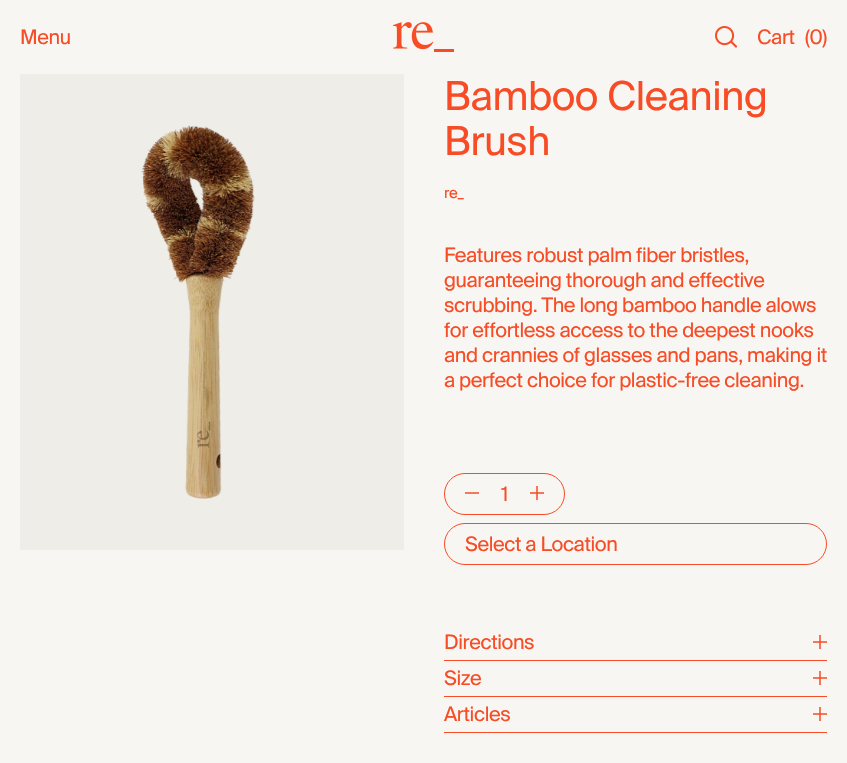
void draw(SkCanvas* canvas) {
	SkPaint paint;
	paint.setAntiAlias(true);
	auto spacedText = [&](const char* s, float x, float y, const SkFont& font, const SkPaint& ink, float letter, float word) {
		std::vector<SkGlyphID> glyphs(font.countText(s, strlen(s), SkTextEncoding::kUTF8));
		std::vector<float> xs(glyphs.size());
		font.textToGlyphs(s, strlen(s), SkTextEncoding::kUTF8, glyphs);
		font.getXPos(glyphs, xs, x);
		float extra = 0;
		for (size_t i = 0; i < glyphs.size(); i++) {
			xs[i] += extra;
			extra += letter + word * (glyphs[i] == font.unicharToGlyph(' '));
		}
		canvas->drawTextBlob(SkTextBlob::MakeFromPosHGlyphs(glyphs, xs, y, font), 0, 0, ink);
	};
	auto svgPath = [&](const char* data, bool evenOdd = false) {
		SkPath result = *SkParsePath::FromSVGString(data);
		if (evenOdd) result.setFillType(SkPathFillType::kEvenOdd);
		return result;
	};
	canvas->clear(0xfff7f6f2);
	SkFont f1(fontMgr->matchFamilyStyle("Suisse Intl", SkFontStyle::Normal()), 20);
	f1.setSubpixel(true);
	paint.setColor(0xfff74c25);
	spacedText("Menu", 20, 44, f1, paint, -0.4, 0);
	canvas->drawImageRect(SkImages::DeferredFromEncodedData(SkData::MakeFromFileName("img1.png")), SkRect::MakeXYWH(393, 22, 61, 30), SkSamplingOptions());
	canvas->drawImageRect(SkImages::DeferredFromEncodedData(SkData::MakeFromFileName("img2.png")), SkRect::MakeXYWH(715, 26, 22, 22), SkSamplingOptions());
	spacedText("Cart", 757, 44, f1, paint, -0.4, 0);
	spacedText("(0)", 805, 44, f1, paint, -0.4, 0);
	paint.setColor(0xffefede7);
	canvas->drawRect(SkRect::MakeXYWH(20, 74, 384, 476), paint);
	canvas->drawImageRect(SkImages::DeferredFromEncodedData(SkData::MakeFromFileName("img3.png")), SkRect::MakeXYWH(141, 125, 114, 374), SkSamplingOptions());
	SkFont f2(fontMgr->matchFamilyStyle("Suisse Intl", SkFontStyle::Normal()), 40);
	f2.setSubpixel(true);
	paint.setColor(0xfff74c25);
	spacedText("Bamboo Cleaning", 444, 110, f2, paint, -0.4, 0);
	spacedText("Brush", 444, 155, f2, paint, -0.4, 0);
	SkFont f3(fontMgr->matchFamilyStyle("Suisse Intl", SkFontStyle::Normal()), 15);
	f3.setSubpixel(true);
	spacedText("re_", 444, 198, f3, paint, -0.4, 0);
	spacedText("Features robust palm fiber bristles,", 444, 262, f1, paint, -0.4, 0);
	spacedText("guaranteeing thorough and effective", 444, 287, f1, paint, -0.4, 0);
	spacedText("scrubbing. The long bamboo handle alows", 444, 312, f1, paint, -0.4, 0);
	spacedText("for effortless access to the deepest nooks", 444, 337, f1, paint, -0.4, 0);
	spacedText("and crannies of glasses and pans, making it", 444, 362, f1, paint, -0.4, 0);
	spacedText("a perfect choice for plastic-free cleaning.", 444, 387, f1, paint, -0.4, 0);
	paint.setStroke(true);
	paint.setStrokeWidth(1);
	canvas->drawRoundRect(SkRect::MakeXYWH(444.5, 473.5, 120, 41), 20.5, 20.5, paint);
	paint.setStroke(false);
	paint.setColor(0xfff77758);
	canvas->drawRect(SkRect::MakeXYWH(465, 492, 14, 2), paint);
	paint.setColor(0xfff74c25);
	spacedText("1", 501, 501, f1, paint, -0.4, 0);
	canvas->save();
	canvas->clipRect(SkRect::MakeXYWH(530, 486, 14, 14));
	paint.setStroke(true);
	paint.setStrokeWidth(1.5);
	canvas->drawPath(svgPath("M537 486V500.5M530 493H544.5"), paint);
	canvas->restore();
	paint.setStrokeWidth(1);
	canvas->drawRoundRect(SkRect::MakeXYWH(444.5, 523.5, 382, 41), 20.5, 20.5, paint);
	paint.setStroke(false);
	spacedText("Select a Location", 465, 551, f1, paint, -0.4, 0);
	canvas->drawRect(SkRect::MakeXYWH(444, 660, 383, 1), paint);
	spacedText("Directions", 444, 649, f1, paint, -0.4, 0);
	canvas->save();
	canvas->clipRect(SkRect::MakeXYWH(813, 635, 14, 14));
	paint.setStroke(true);
	paint.setStrokeWidth(1.5);
	canvas->drawPath(svgPath("M820 635V649.5M813 642H827.5"), paint);
	canvas->restore();
	paint.setStroke(false);
	canvas->drawRect(SkRect::MakeXYWH(444, 696, 383, 1), paint);
	spacedText("Size", 444, 685, f1, paint, -0.4, 0);
	canvas->save();
	canvas->clipRect(SkRect::MakeXYWH(813, 671, 14, 14));
	paint.setStroke(true);
	canvas->drawPath(svgPath("M820 671V685.5M813 678H827.5"), paint);
	canvas->restore();
	paint.setStroke(false);
	canvas->drawRect(SkRect::MakeXYWH(444, 732, 383, 1), paint);
	spacedText("Articles", 444, 721, f1, paint, -0.4, 0);
	canvas->save();
	canvas->clipRect(SkRect::MakeXYWH(813, 707, 14, 14));
	paint.setStroke(true);
	canvas->drawPath(svgPath("M820 707V721.5M813 714H827.5"), paint);
	canvas->restore();
}
